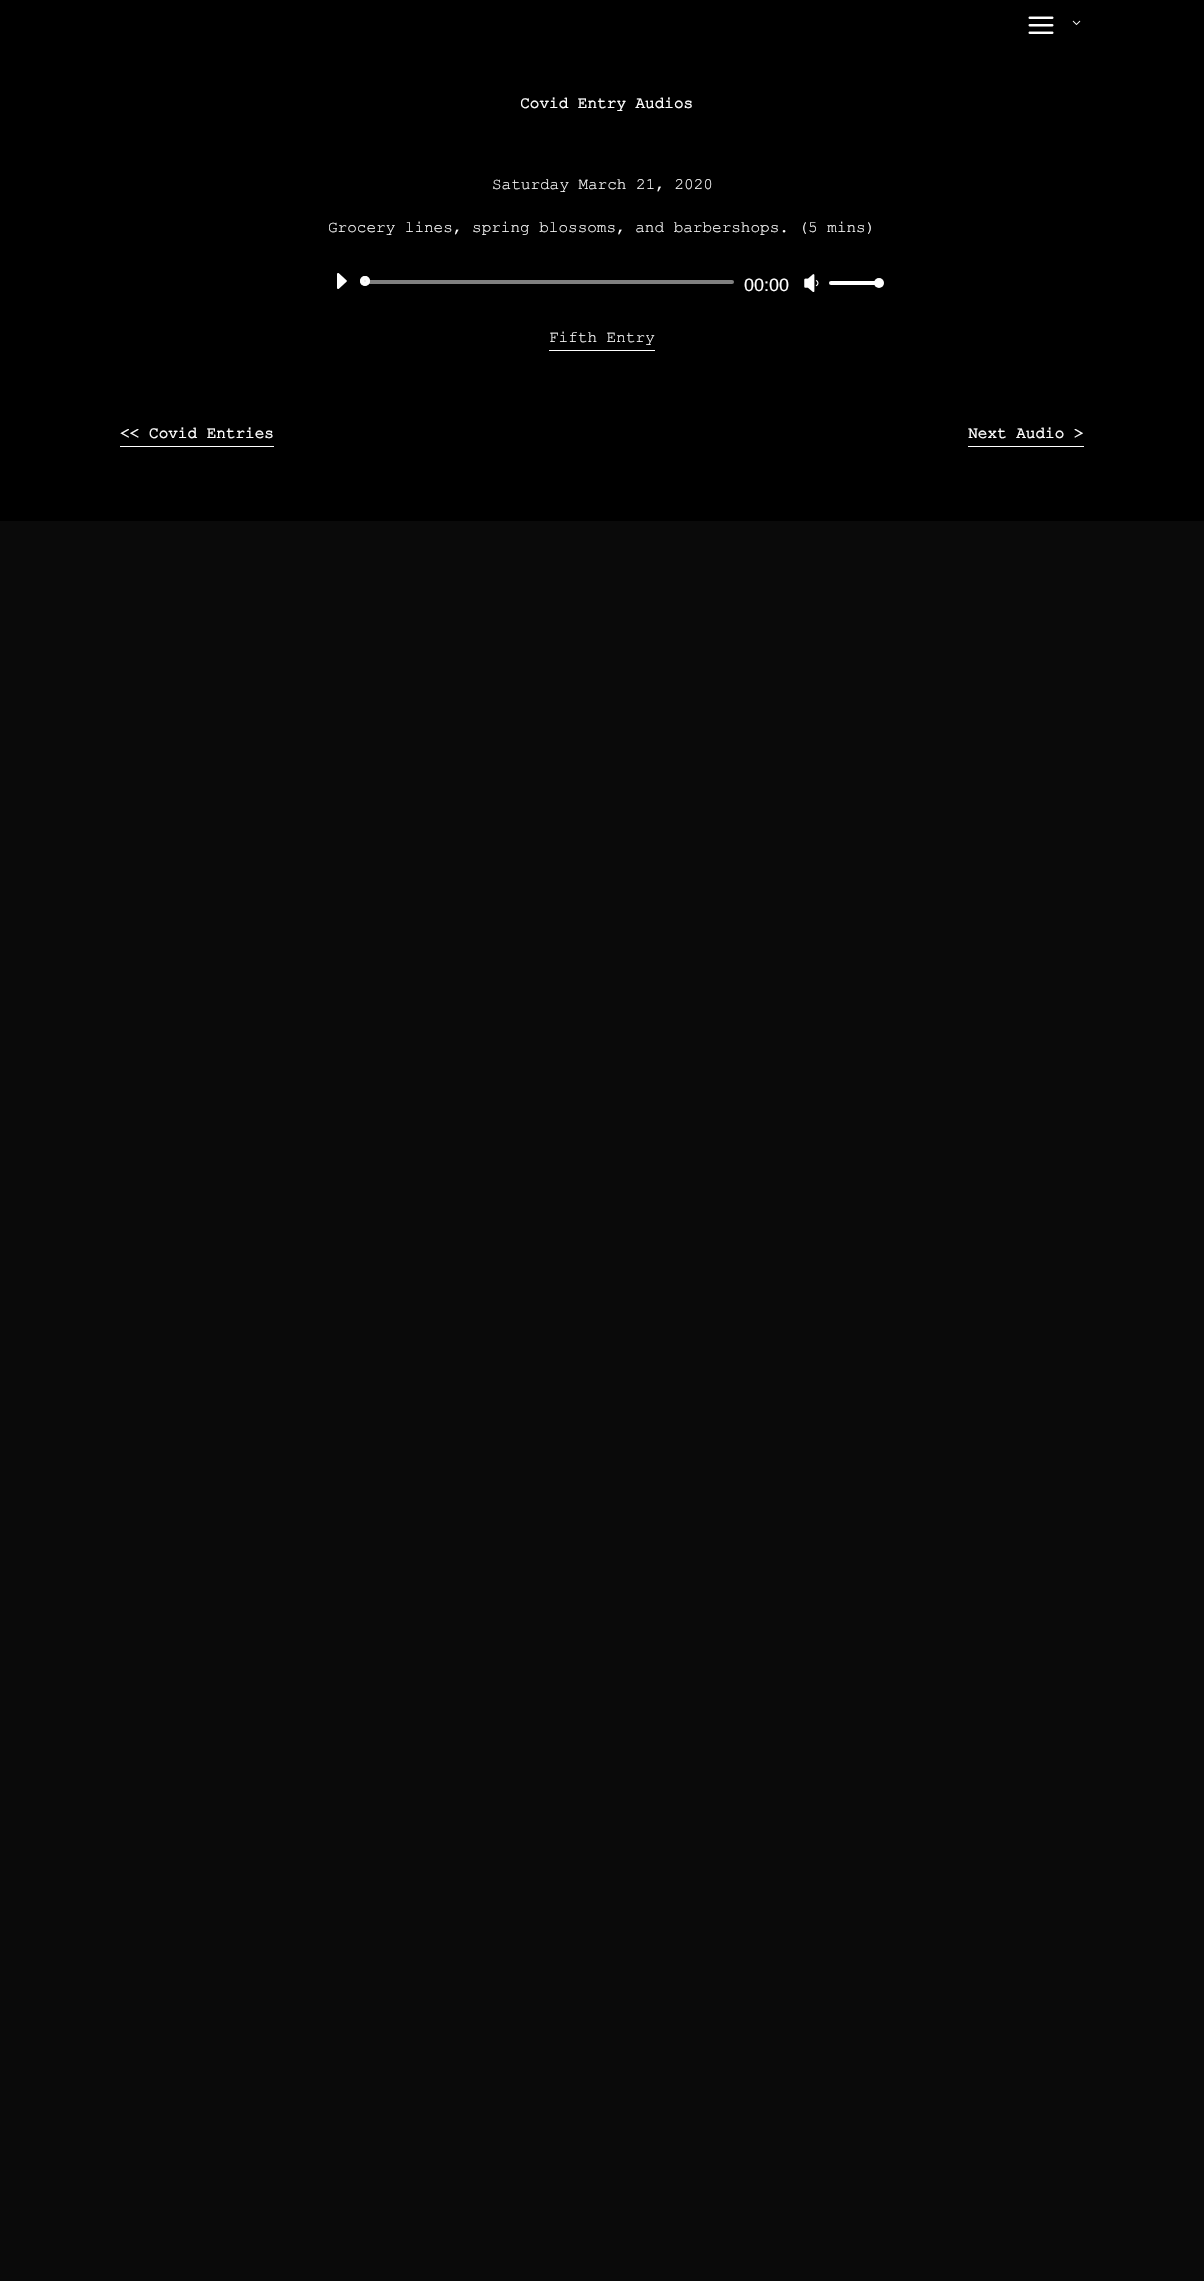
void draw(SkCanvas* canvas) {
	SkPaint paint;
	paint.setAntiAlias(true);
	canvas->clear(0xff0a0a0a);
	paint.setColor(0xff000000);
	canvas->drawRect(SkRect::MakeXYWH(0, 0, 1204, 521), paint);
	canvas->drawImageRect(SkImages::DeferredFromEncodedData(SkData::MakeFromFileName("img1.png")), SkRect::MakeXYWH(1028, 16, 26, 18), SkSamplingOptions());
	canvas->drawImageRect(SkImages::DeferredFromEncodedData(SkData::MakeFromFileName("img2.png")), SkRect::MakeXYWH(1072, 20, 9, 5), SkSamplingOptions());
	SkFont f1(fontMgr->matchFamilyStyle("Courier New", SkFontStyle::Bold()), 16);
	f1.setSubpixel(true);
	paint.setColor(0xffffffff);
	canvas->drawString("Covid Entry Audios", 520, 108, f1, paint);
	SkFont f2(fontMgr->matchFamilyStyle("Courier New", SkFontStyle::Normal()), 16);
	f2.setSubpixel(true);
	canvas->drawString("Saturday March 21, 2020", 492, 189, f2, paint);
	canvas->drawString("Grocery lines, spring blossoms, and barbershops. (5 mins)", 328, 232, f2, paint);
	canvas->drawImageRect(SkImages::DeferredFromEncodedData(SkData::MakeFromFileName("img3.png")), SkRect::MakeXYWH(337, 273, 10, 16), SkSamplingOptions());
	paint.setColor(0xff808080);
	canvas->drawRoundRect(SkRect::MakeXYWH(367, 280, 367, 4), 2, 2, paint);
	paint.setColor(0xe6ffffff);
	canvas->drawCircle(365, 281, 5, paint);
	paint.setStroke(true);
	paint.setStrokeWidth(4);
	canvas->drawCircle(365, 281, 3, paint);
	SkFont f3(fontMgr->matchFamilyStyle("Liberation Sans", SkFontStyle::Normal()), 18);
	f3.setSubpixel(true);
	paint.setStroke(false);
	paint.setColor(0xffffffff);
	canvas->drawString("00:00", 744, 291, f3, paint);
	canvas->drawImageRect(SkImages::DeferredFromEncodedData(SkData::MakeFromFileName("img4.png")), SkRect::MakeXYWH(804, 274, 15, 18), SkSamplingOptions());
	canvas->drawRoundRect(SkRect::MakeXYWH(829, 281, 50, 4), 2, 2, paint);
	canvas->drawCircle(879, 283, 5, paint);
	canvas->drawString("Fifth Entry", 549, 342, f2, paint);
	canvas->drawRect(SkRect::MakeXYWH(549, 350, 106, 1), paint);
	canvas->drawString("<< Covid Entries", 120, 438, f1, paint);
	canvas->drawRect(SkRect::MakeXYWH(120, 446, 154, 1), paint);
	canvas->drawString("Next Audio >", 968, 438, f1, paint);
	canvas->drawRect(SkRect::MakeXYWH(968, 446, 116, 1), paint);
}
